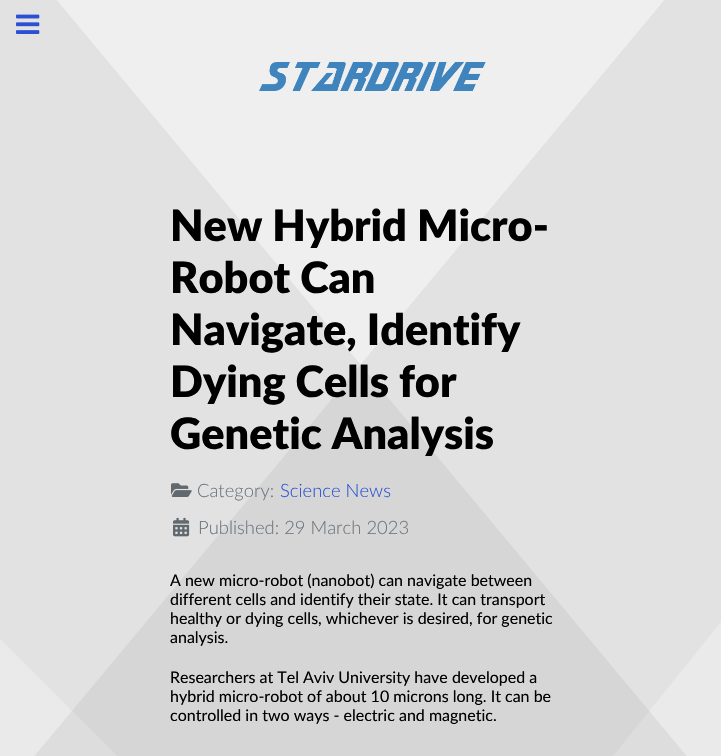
void draw(SkCanvas* canvas) {
	SkPaint paint;
	paint.setAntiAlias(true);
	auto svgPath = [&](const char* data, bool evenOdd = false) {
		SkPath result = *SkParsePath::FromSVGString(data);
		if (evenOdd) result.setFillType(SkPathFillType::kEvenOdd);
		return result;
	};
	canvas->clear(0xffffffff);
	canvas->drawImageRect(SkImages::DeferredFromEncodedData(SkData::MakeFromFileName("img2.png")), SkRect::MakeXYWH(259, 62, 227, 29), SkSamplingOptions());
	canvas->drawImageRect(SkImages::DeferredFromEncodedData(SkData::MakeFromFileName("img3.png")), SkRect::MakeXYWH(171, 483, 21, 14), SkSamplingOptions());
	canvas->drawImageRect(SkImages::DeferredFromEncodedData(SkData::MakeFromFileName("img4.png")), SkRect::MakeXYWH(173, 517, 17, 20), SkSamplingOptions());
	paint.setColor(0x0d000000);
	canvas->drawPath(svgPath("M0 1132V-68L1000 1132Z"), paint);
	canvas->drawPath(svgPath("M721 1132H-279L721-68Z"), paint);
	paint.setColor(0x08000000);
	canvas->drawPath(svgPath("M0 0H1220L0 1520Z"), paint);
	canvas->drawPath(svgPath("M-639 0H721V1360Z"), paint);
	canvas->drawImageRect(SkImages::DeferredFromEncodedData(SkData::MakeFromFileName("img1.png")), SkRect::MakeXYWH(16, 14, 24, 20), SkSamplingOptions());
	SkFont f1(fontMgr->matchFamilyStyle("Lato", SkFontStyle(900, SkFontStyle::kNormal_Width, SkFontStyle::kUpright_Slant)), 43.25);
	f1.setSubpixel(true);
	paint.setColor(0xff000000);
	canvas->drawString("New Hybrid Micro-", 170, 241, f1, paint);
	canvas->drawString("Robot Can", 170, 293, f1, paint);
	canvas->drawString("Navigate, Identify", 170, 345, f1, paint);
	canvas->drawString("Dying Cells for", 170, 397, f1, paint);
	canvas->drawString("Genetic Analysis", 170, 449, f1, paint);
	SkFont f2(fontMgr->matchFamilyStyle("Lato", SkFontStyle(300, SkFontStyle::kNormal_Width, SkFontStyle::kUpright_Slant)), 18.4);
	f2.setSubpixel(true);
	paint.setColor(0xff6c757d);
	canvas->drawString("Category:", 197, 497, f2, paint);
	paint.setColor(0xff2a51d3);
	canvas->drawString("Science News", 280, 497, f2, paint);
	paint.setColor(0xff6c757d);
	canvas->drawString("Published: 29 March 2023", 198, 534, f2, paint);
	SkFont f3(fontMgr->matchFamilyStyle("Lato", SkFontStyle::Normal()), 16);
	f3.setSubpixel(true);
	paint.setColor(0xff000000);
	canvas->drawString("A new micro-robot (nanobot) can navigate between", 170, 586, f3, paint);
	canvas->drawString("different cells and identify their state. It can transport", 170, 605, f3, paint);
	canvas->drawString("healthy or dying cells, whichever is desired, for genetic", 170, 624, f3, paint);
	canvas->drawString("analysis.", 170, 643, f3, paint);
	canvas->drawString("Researchers at Tel Aviv University have developed a", 170, 683, f3, paint);
	canvas->drawString("hybrid micro-robot of about 10 microns long. It can be", 170, 702, f3, paint);
	canvas->drawString("controlled in two ways - electric and magnetic.", 170, 721, f3, paint);
}
